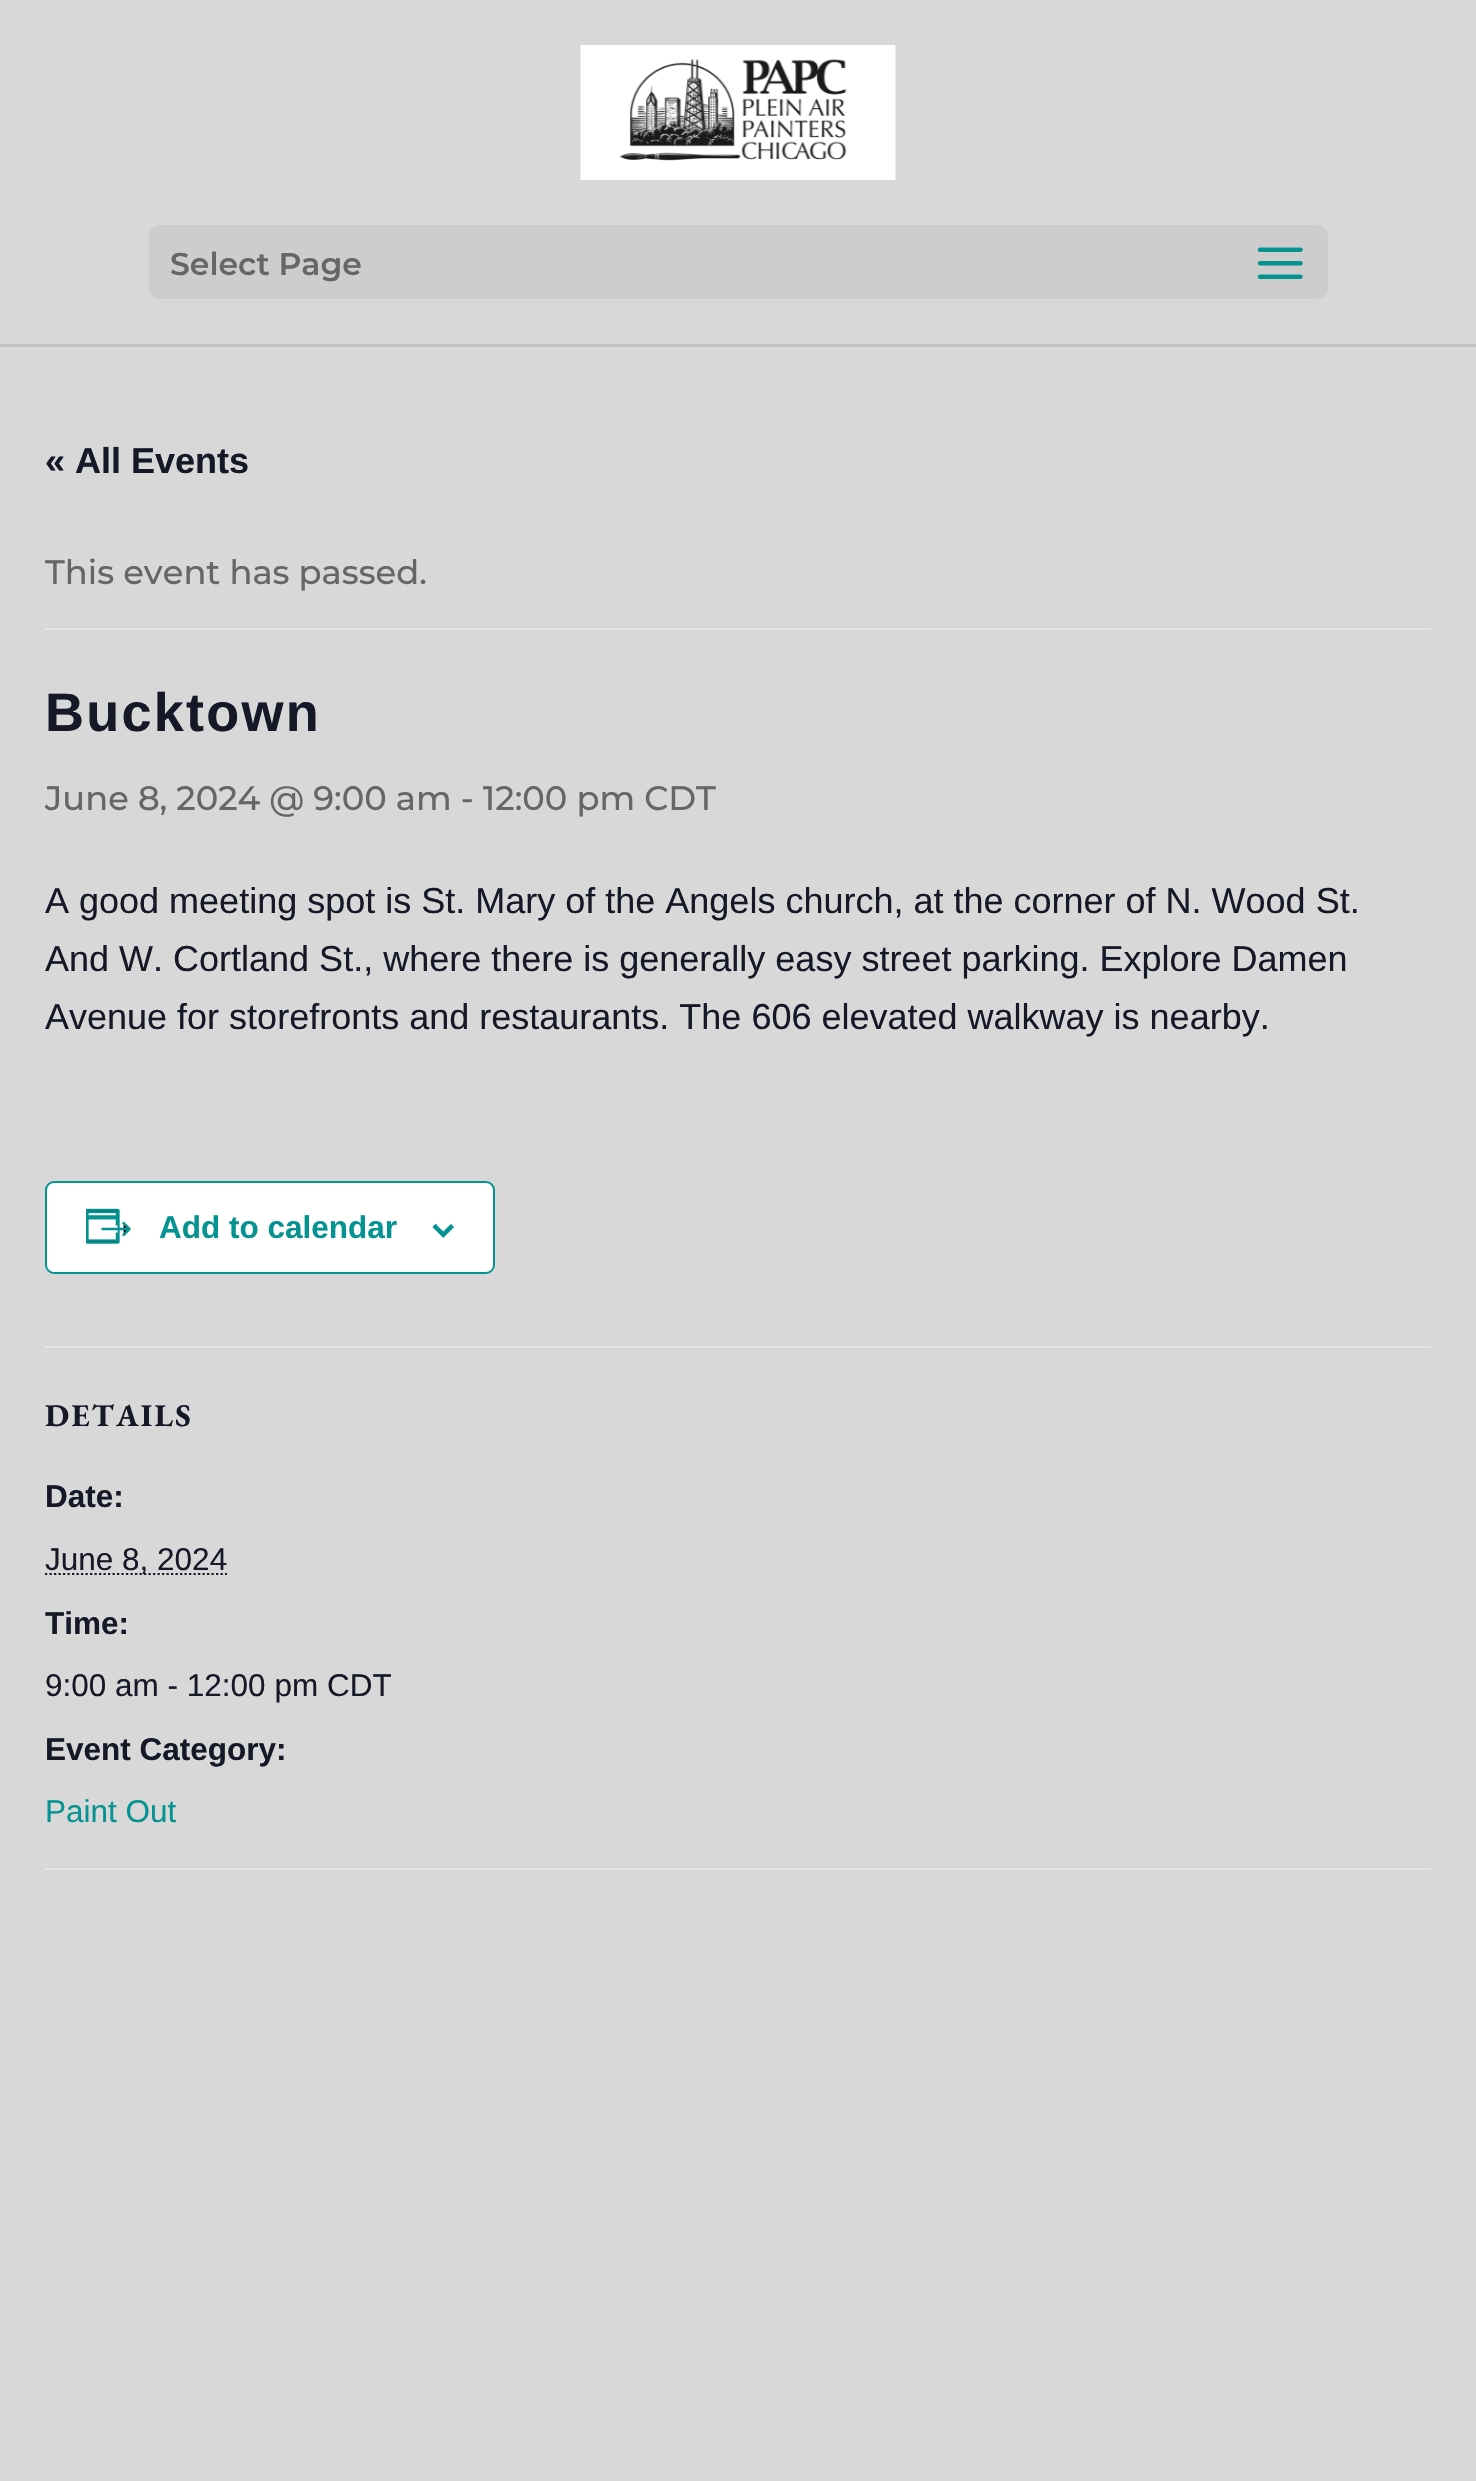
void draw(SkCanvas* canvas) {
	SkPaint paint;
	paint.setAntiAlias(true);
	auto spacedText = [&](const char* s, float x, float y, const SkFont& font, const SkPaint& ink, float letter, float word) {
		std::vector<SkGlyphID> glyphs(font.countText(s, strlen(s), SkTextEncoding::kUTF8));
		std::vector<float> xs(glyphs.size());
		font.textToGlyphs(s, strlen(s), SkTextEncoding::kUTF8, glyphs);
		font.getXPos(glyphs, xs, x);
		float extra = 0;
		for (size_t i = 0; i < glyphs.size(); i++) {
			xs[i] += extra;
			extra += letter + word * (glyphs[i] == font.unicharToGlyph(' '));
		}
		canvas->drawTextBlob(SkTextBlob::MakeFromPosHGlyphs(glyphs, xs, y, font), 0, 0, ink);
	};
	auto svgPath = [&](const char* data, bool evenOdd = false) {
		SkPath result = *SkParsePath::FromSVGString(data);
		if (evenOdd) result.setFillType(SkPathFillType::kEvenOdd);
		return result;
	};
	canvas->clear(0xffd8d8d8);
	paint.setColor(0xffc2c2c2);
	canvas->drawRect(SkRect::MakeXYWH(0, 344, 1476, 3), paint);
	canvas->drawImageRect(SkImages::DeferredFromEncodedData(SkData::MakeFromFileName("img1.png")), SkRect::MakeXYWH(580, 45, 316, 135), SkSamplingOptions());
	paint.setColor(0xffcdcdcd);
	canvas->drawRoundRect(SkRect::MakeXYWH(149, 225, 1179, 74), 11, 11, paint);
	SkFont f1(fontMgr->matchFamilyStyle("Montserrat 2", SkFontStyle(100, SkFontStyle::kNormal_Width, SkFontStyle::kUpright_Slant)), 31.5);
	f1.setSubpixel(true);
	paint.setColor(0xff666666);
	canvas->drawString("Select Page", 170, 275, f1, paint);
	canvas->drawImageRect(SkImages::DeferredFromEncodedData(SkData::MakeFromFileName("img2.png")), SkRect::MakeXYWH(1257, 247, 46, 32), SkSamplingOptions());
	SkFont f2(fontMgr->matchFamilyStyle("Liberation Sans", SkFontStyle::Bold()), 36);
	f2.setSubpixel(true);
	paint.setColor(0xff141827);
	canvas->drawString("« All Events", 45, 473, f2, paint);
	paint.setColor(0xffe4e4e4);
	canvas->drawRect(SkRect::MakeXYWH(45, 628, 1386, 2), paint);
	SkFont f3(fontMgr->matchFamilyStyle("Montserrat", SkFontStyle(100, SkFontStyle::kNormal_Width, SkFontStyle::kUpright_Slant)), 33.75);
	f3.setSubpixel(true);
	paint.setColor(0xff666666);
	canvas->drawString("This event has passed.", 45, 584, f3, paint);
	SkFont f4(fontMgr->matchFamilyStyle("Liberation Sans", SkFontStyle::Bold()), 54);
	f4.setSubpixel(true);
	paint.setColor(0xff141827);
	spacedText("Bucktown", 45, 731, f4, paint, 2.25, 0);
	paint.setColor(0xff666666);
	canvas->drawString("June 8, 2024 @ 9:00 am - 12:00 pm CDT", 45, 810, f3, paint);
	SkFont f5(fontMgr->matchFamilyStyle("Liberation Sans", SkFontStyle::Normal()), 36);
	f5.setSubpixel(true);
	paint.setColor(0xff141827);
	canvas->drawString("A good meeting spot is St. Mary of the Angels church, at the corner of N. Wood St.", 45, 913, f5, paint);
	canvas->drawString("And W. Cortland St., where there is generally easy street parking. Explore Damen", 45, 971, f5, paint);
	canvas->drawString("Avenue for storefronts and restaurants. The 606 elevated walkway is nearby.", 45, 1029, f5, paint);
	paint.setColor(0xffffffff);
	canvas->drawRoundRect(SkRect::MakeXYWH(46, 1182, 448, 91), 8, 8, paint);
	paint.setStroke(true);
	paint.setStrokeWidth(2);
	paint.setColor(0xff049391);
	canvas->drawRoundRect(SkRect::MakeXYWH(46, 1182, 448, 91), 8, 8, paint);
	canvas->drawImageRect(SkImages::DeferredFromEncodedData(SkData::MakeFromFileName("img3.png")), SkRect::MakeXYWH(86, 1208, 45, 36), SkSamplingOptions());
	SkFont f6(fontMgr->matchFamilyStyle("Liberation Sans", SkFontStyle::Bold()), 31.5);
	f6.setSubpixel(true);
	paint.setStroke(false);
	canvas->drawString("Add to calendar", 159, 1238, f6, paint);
	canvas->drawImageRect(SkImages::DeferredFromEncodedData(SkData::MakeFromFileName("img4.png")), SkRect::MakeXYWH(432, 1224, 22, 14), SkSamplingOptions());
	paint.setColor(0xffe4e4e4);
	canvas->drawRect(SkRect::MakeXYWH(45, 1346, 1386, 2), paint);
	SkFont f7(fontMgr->matchFamilyStyle("EB Garamond", SkFontStyle::Bold()), 31.5);
	f7.setSubpixel(true);
	paint.setColor(0xff141827);
	spacedText("DETAILS", 45, 1426, f7, paint, 2.25, 0);
	canvas->drawString("Date:", 45, 1507, f6, paint);
	paint.setStroke(true);
	paint.setStrokeWidth(2.2);
	paint.setPathEffect(SkDashPathEffect::Make({{2.25f, 2.25f}}, 0));
	canvas->drawPath(svgPath("M45 1574H227"), paint);
	paint.setPathEffect(nullptr);
	SkFont f8(fontMgr->matchFamilyStyle("Liberation Sans", SkFontStyle::Normal()), 31.5);
	f8.setSubpixel(true);
	paint.setStroke(false);
	canvas->drawString("June 8, 2024", 45, 1570, f8, paint);
	canvas->drawString("Time:", 45, 1634, f6, paint);
	canvas->drawString("9:00 am - 12:00 pm CDT", 45, 1696, f8, paint);
	canvas->drawString("Event Category:", 45, 1760, f6, paint);
	paint.setColor(0xff049391);
	canvas->drawString("Paint Out", 45, 1822, f8, paint);
	paint.setColor(0xffe4e4e4);
	canvas->drawRect(SkRect::MakeXYWH(45, 1868, 1386, 2), paint);
}
